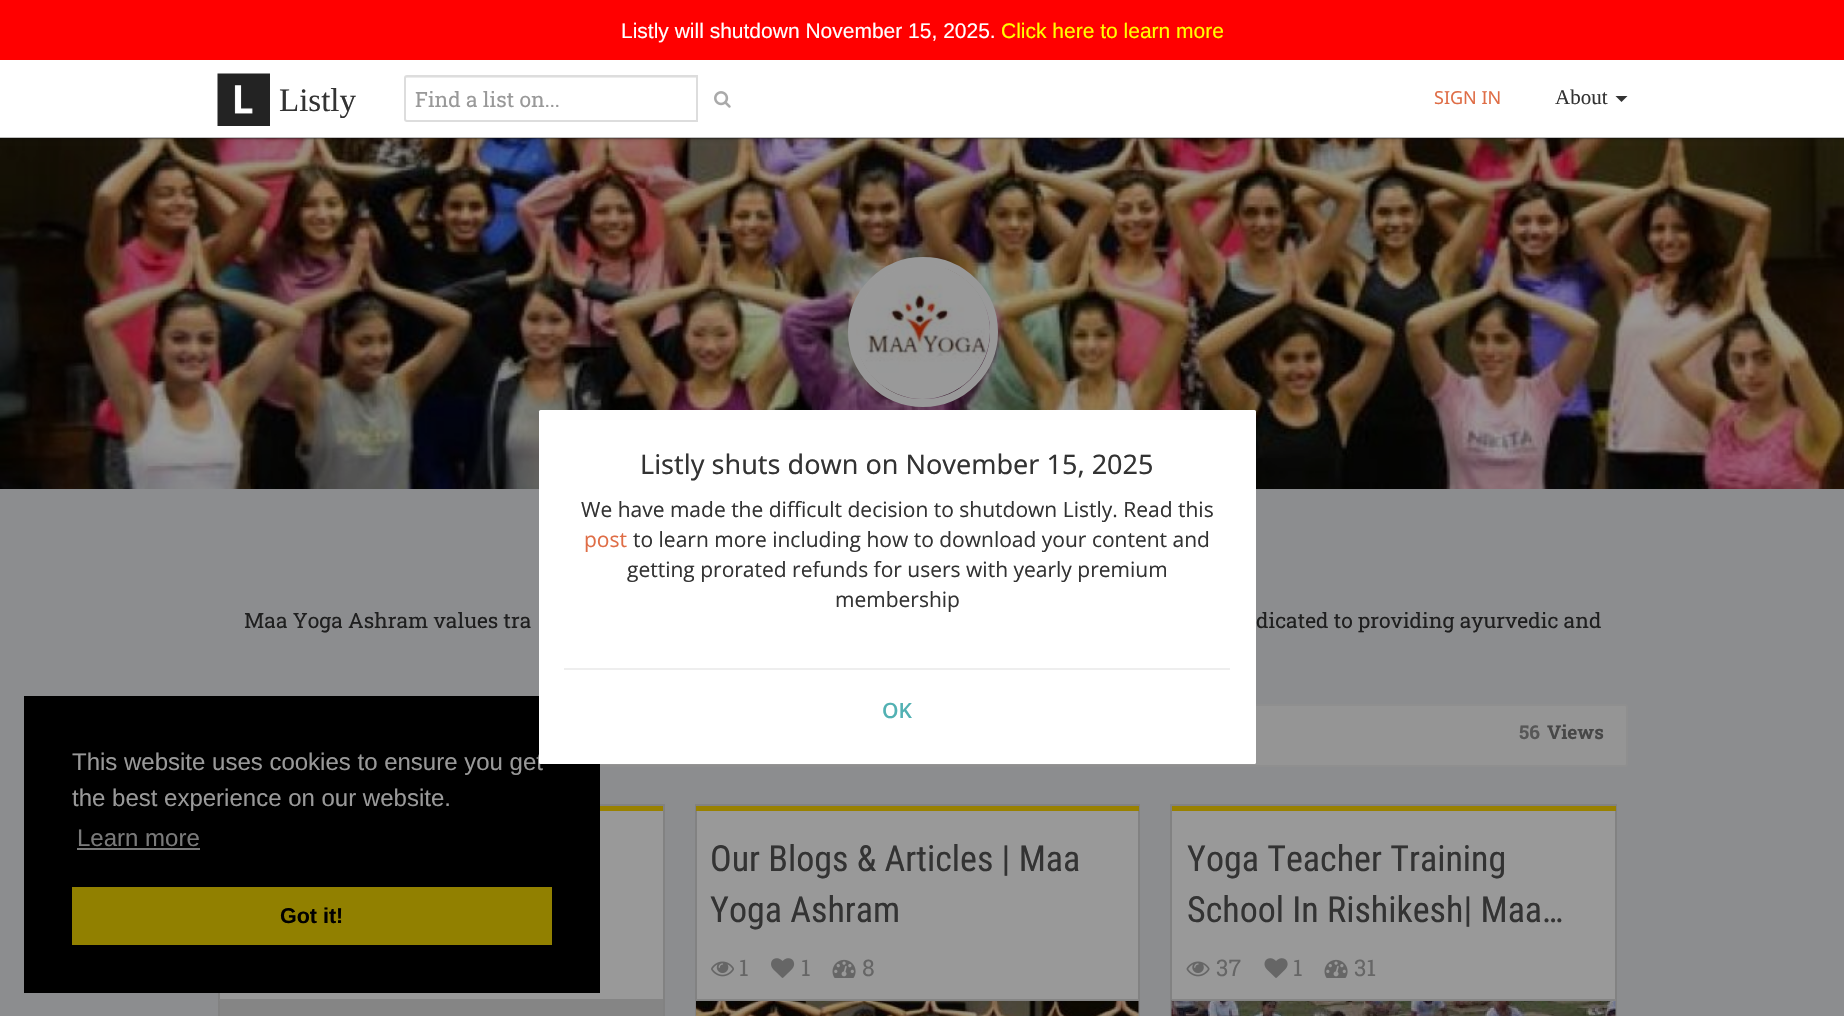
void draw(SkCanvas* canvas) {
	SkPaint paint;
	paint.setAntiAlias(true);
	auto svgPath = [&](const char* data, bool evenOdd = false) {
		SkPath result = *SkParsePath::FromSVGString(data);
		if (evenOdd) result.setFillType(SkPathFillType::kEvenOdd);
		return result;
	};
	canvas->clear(0xff8c8d8f);
	canvas->drawImageRect(SkImages::DeferredFromEncodedData(SkData::MakeFromFileName("img3.png")), SkRect::MakeXYWH(0, 138, 1844, 351), SkSamplingOptions());
	paint.setColor(0x1a0c0d0e);
	paint.setMaskFilter(SkMaskFilter::MakeBlur(kNormal_SkBlurStyle, 2));
	canvas->drawRect(SkRect::MakeXYWH(0, 2, 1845, 138), paint);
	paint.setMaskFilter(nullptr);
	canvas->drawRect(SkRect::MakeXYWH(138, 138, 1576, 2), paint);
	paint.setColor(0xffffffff);
	canvas->drawRect(SkRect::MakeXYWH(0, 60, 1844, 78), paint);
	paint.setColor(0x40000000);
	canvas->drawRect(SkRect::MakeXYWH(0, 137, 1844, 2), paint);
	paint.setColor(0xffff0000);
	canvas->drawRect(SkRect::MakeXYWH(0, 0, 1844, 60), paint);
	SkFont f1(fontMgr->matchFamilyStyle("Liberation Sans", SkFontStyle::Normal()), 21);
	f1.setSubpixel(true);
	paint.setColor(0xffffffff);
	canvas->drawString("Listly will shutdown November 15, 2025.", 621, 38, f1, paint);
	paint.setColor(0xffffff00);
	canvas->drawString("Click here to learn more", 1001, 38, f1, paint);
	canvas->drawImageRect(SkImages::DeferredFromEncodedData(SkData::MakeFromFileName("img1.png")), SkRect::MakeXYWH(217, 73, 53, 53), SkSamplingOptions());
	SkFont f2(fontMgr->matchFamilyStyle("Liberation Serif", SkFontStyle::Normal()), 33);
	f2.setSubpixel(true);
	paint.setColor(0xff333333);
	canvas->drawString("Listly", 279, 111, f2, paint);
	paint.setColor(0xffececec);
	canvas->drawPath(svgPath("M406 78H696V77H406L405 78V79Z"), paint);
	paint.setStroke(true);
	paint.setStrokeWidth(2);
	paint.setColor(0xffdddddd);
	canvas->drawPath(svgPath("M407 76H697V121H407C406 121 405 120 405 119V78C405 77 406 76 407 76Z"), paint);
	SkFont f3(fontMgr->matchFamilyStyle("Roboto Slab", SkFontStyle::Normal()), 21);
	f3.setSubpixel(true);
	paint.setStroke(false);
	paint.setColor(0xff999999);
	canvas->drawString("Find a list on...", 415, 107, f3, paint);
	canvas->drawImageRect(SkImages::DeferredFromEncodedData(SkData::MakeFromFileName("img2.png")), SkRect::MakeXYWH(714, 91, 17, 17), SkSamplingOptions());
	SkFont f4(fontMgr->matchFamilyStyle("Noto Sans", SkFontStyle::Normal()), 18);
	f4.setSubpixel(true);
	paint.setColor(0xffdf6d46);
	canvas->drawString("SIGN IN", 1434, 104, f4, paint);
	SkFont f5(fontMgr->matchFamilyStyle("Liberation Serif", SkFontStyle::Normal()), 21);
	f5.setSubpixel(true);
	paint.setColor(0xff333333);
	canvas->drawString("About", 1555, 104, f5, paint);
	canvas->drawPath(svgPath("M1615.5 96H1627.5L1621.5 102Z"), paint);
	paint.setColor(0xff959595);
	canvas->drawRoundRect(SkRect::MakeXYWH(219, 705, 1408, 61), 2, 2, paint);
	paint.setStroke(true);
	paint.setColor(0xff8f8f8f);
	canvas->drawRoundRect(SkRect::MakeXYWH(219, 705, 1408, 61), 2, 2, paint);
	paint.setStroke(false);
	paint.setColor(0xff999999);
	canvas->drawRect(SkRect::MakeXYWH(220, 811, 443, 188), paint);
	paint.setStroke(true);
	paint.setColor(0xff828282);
	canvas->drawRect(SkRect::MakeXYWH(219, 805, 445, 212), paint);
	paint.setStroke(false);
	paint.setColor(0xff000000);
	canvas->drawRect(SkRect::MakeXYWH(24, 696, 576, 297), paint);
	SkFont f6(fontMgr->matchFamilyStyle("Liberation Sans", SkFontStyle::Normal()), 24);
	f6.setSubpixel(true);
	paint.setColor(0xff999999);
	canvas->drawString("This website uses cookies to ensure you get", 72, 770, f6, paint);
	paint.setColor(0xffffffff);
	canvas->drawRoundRect(SkRect::MakeXYWH(539, 410, 717, 354), 1.5, 1.5, paint);
	SkFont f7(fontMgr->matchFamilyStyle("Noto Sans", SkFontStyle::Normal()), 27);
	f7.setSubpixel(true);
	paint.setColor(0xff333333);
	canvas->drawString("Listly shuts down on November 15, 2025", 640, 474, f7, paint);
	SkFont f8(fontMgr->matchFamilyStyle("Open Sans", SkFontStyle::Normal()), 21);
	f8.setSubpixel(true);
	canvas->drawString("We have made the difficult decision to shutdown Listly. Read this", 581, 517, f8, paint);
	paint.setColor(0xffdf6d46);
	canvas->drawString("post", 584, 547, f8, paint);
	paint.setColor(0xff333333);
	canvas->drawString("to learn more including how to download your content and", 633, 547, f8, paint);
	canvas->drawString("getting prorated refunds for users with yearly premium", 627, 577, f8, paint);
	canvas->drawString("membership", 835, 607, f8, paint);
	paint.setColor(0xffeeeeee);
	canvas->drawRect(SkRect::MakeXYWH(564, 668, 666, 2), paint);
	SkFont f9(fontMgr->matchFamilyStyle("Open Sans", SkFontStyle(600, SkFontStyle::kNormal_Width, SkFontStyle::kUpright_Slant)), 21);
	f9.setSubpixel(true);
	paint.setColor(0xff52b1b3);
	canvas->drawString("OK", 882, 718, f9, paint);
	paint.setStroke(true);
	paint.setStrokeWidth(8);
	paint.setColor(0xff999999);
	canvas->drawCircle(923, 332, 71, paint);
	canvas->drawImageRect(SkImages::DeferredFromEncodedData(SkData::MakeFromFileName("img4.png")), SkRect::MakeXYWH(856, 265, 134, 134), SkSamplingOptions());
	paint.setStroke(false);
	paint.setColor(0xff1f1f1f);
	canvas->drawString("Maa Yoga Ashram values tra", 244, 628, f3, paint);
	canvas->drawString("dicated to providing ayurvedic and", 1256, 628, f3, paint);
	SkFont f10(fontMgr->matchFamilyStyle("Roboto Slab", SkFontStyle::Bold()), 19);
	f10.setSubpixel(true);
	paint.setColor(0xff575757);
	canvas->drawString("56", 1519, 739, f10, paint);
	paint.setColor(0xff474747);
	canvas->drawString("Views", 1547, 739, f10, paint);
	paint.setColor(0xff998100);
	canvas->drawRect(SkRect::MakeXYWH(600, 806, 63, 5), paint);
	paint.setColor(0xff858585);
	canvas->drawRect(SkRect::MakeXYWH(220, 1001, 443, 15), paint);
	canvas->drawRect(SkRect::MakeXYWH(219, 999, 444, 2), paint);
	paint.setColor(0xff999999);
	canvas->drawRect(SkRect::MakeXYWH(697, 811, 441, 188), paint);
	paint.setStroke(true);
	paint.setStrokeWidth(2);
	paint.setColor(0xff828282);
	canvas->drawRect(SkRect::MakeXYWH(696, 805, 443, 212), paint);
	paint.setStroke(false);
	paint.setColor(0xff998100);
	canvas->drawRect(SkRect::MakeXYWH(696, 806, 443, 5), paint);
	SkFont f11(fontMgr->matchFamilyStyle("Roboto Condensed", SkFontStyle::Normal()), 36);
	f11.setSubpixel(true);
	paint.setColor(0xff333333);
	canvas->drawString("Our Blogs & Articles | Maa", 710, 871, f11, paint);
	canvas->drawString("Yoga Ashram", 710, 922, f11, paint);
	canvas->drawImageRect(SkImages::DeferredFromEncodedData(SkData::MakeFromFileName("img5.png")), SkRect::MakeXYWH(711, 961, 23, 16), SkSamplingOptions());
	SkFont f12(fontMgr->matchFamilyStyle("Roboto Slab", SkFontStyle::Normal()), 23);
	f12.setSubpixel(true);
	paint.setColor(0xff666666);
	canvas->drawString("1", 739, 976, f12, paint);
	canvas->drawImageRect(SkImages::DeferredFromEncodedData(SkData::MakeFromFileName("img6.png")), SkRect::MakeXYWH(771, 958, 24, 20), SkSamplingOptions());
	canvas->drawString("1", 801, 976, f12, paint);
	canvas->drawImageRect(SkImages::DeferredFromEncodedData(SkData::MakeFromFileName("img7.png")), SkRect::MakeXYWH(832, 959, 24, 19), SkSamplingOptions());
	canvas->drawString("8", 862, 976, f12, paint);
	canvas->drawImageRect(SkImages::DeferredFromEncodedData(SkData::MakeFromFileName("img8.png")), SkRect::MakeXYWH(696, 1001, 443, 15), SkSamplingOptions());
	paint.setColor(0xff858585);
	canvas->drawRect(SkRect::MakeXYWH(696, 999, 443, 2), paint);
	paint.setColor(0xff999999);
	canvas->drawRect(SkRect::MakeXYWH(1172, 811, 443, 188), paint);
	paint.setStroke(true);
	paint.setColor(0xff828282);
	canvas->drawRect(SkRect::MakeXYWH(1171, 805, 445, 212), paint);
	paint.setStroke(false);
	paint.setColor(0xff998100);
	canvas->drawRect(SkRect::MakeXYWH(1172, 806, 444, 5), paint);
	paint.setColor(0xff333333);
	canvas->drawString("Yoga Teacher Training", 1187, 871, f11, paint);
	canvas->drawString("School In Rishikesh| Maa…", 1187, 922, f11, paint);
	canvas->drawImageRect(SkImages::DeferredFromEncodedData(SkData::MakeFromFileName("img9.png")), SkRect::MakeXYWH(1186, 961, 24, 16), SkSamplingOptions());
	paint.setColor(0xff666666);
	canvas->drawString("37", 1216, 976, f12, paint);
	canvas->drawImageRect(SkImages::DeferredFromEncodedData(SkData::MakeFromFileName("img10.png")), SkRect::MakeXYWH(1264, 958, 24, 20), SkSamplingOptions());
	canvas->drawString("1", 1293, 976, f12, paint);
	canvas->drawImageRect(SkImages::DeferredFromEncodedData(SkData::MakeFromFileName("img7.png")), SkRect::MakeXYWH(1324, 959, 24, 19), SkSamplingOptions());
	canvas->drawString("31", 1354, 976, f12, paint);
	canvas->drawImageRect(SkImages::DeferredFromEncodedData(SkData::MakeFromFileName("img11.png")), SkRect::MakeXYWH(1171, 1000, 445, 16), SkSamplingOptions());
	paint.setColor(0xff858585);
	canvas->drawRect(SkRect::MakeXYWH(1172, 999, 444, 2), paint);
	paint.setColor(0xff999999);
	canvas->drawString("the best experience on our website.", 72, 806, f6, paint);
	paint.setColor(0xff7a7a7a);
	canvas->drawString("Learn more", 77, 846, f6, paint);
	canvas->drawRect(SkRect::MakeXYWH(77, 848, 123, 2), paint);
	paint.setColor(0xff918000);
	canvas->drawRect(SkRect::MakeXYWH(72, 887, 480, 58), paint);
	SkFont f13(fontMgr->matchFamilyStyle("Liberation Sans", SkFontStyle::Bold()), 21.5);
	f13.setSubpixel(true);
	paint.setColor(0xff000000);
	canvas->drawString("Got it!", 280, 923, f13, paint);
}
